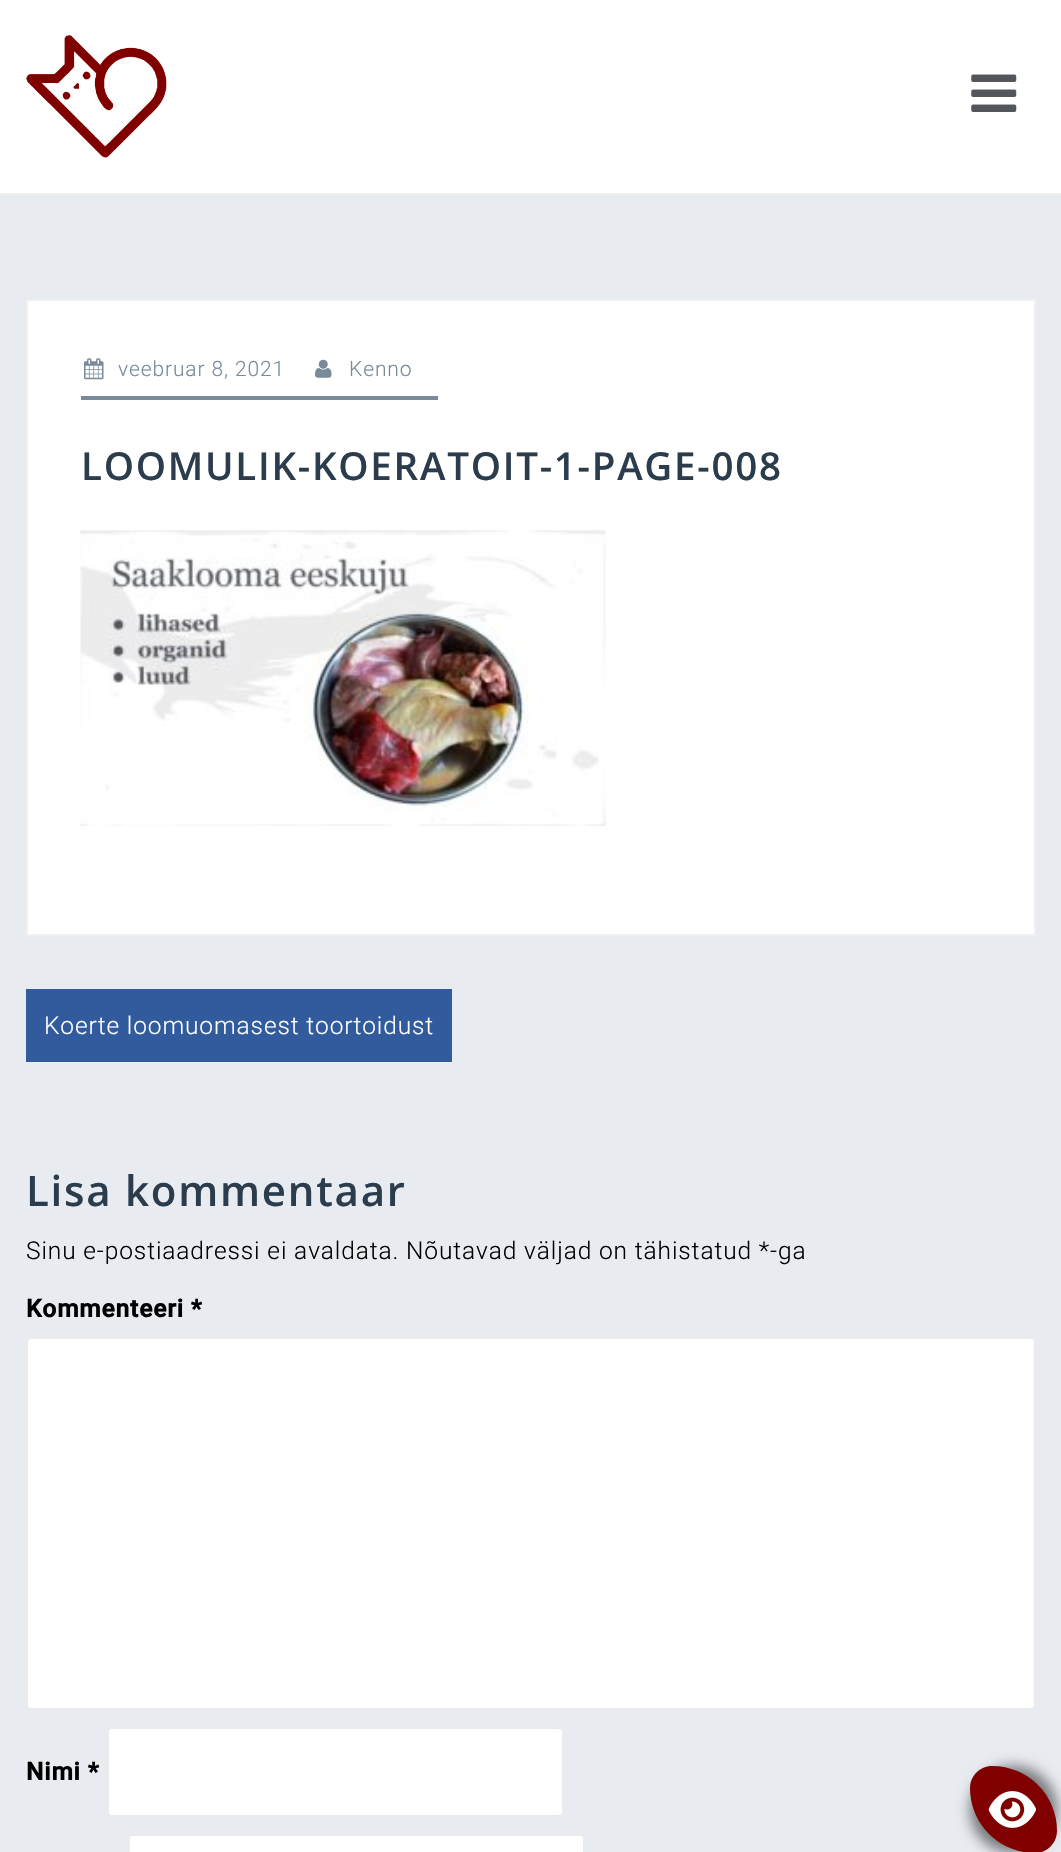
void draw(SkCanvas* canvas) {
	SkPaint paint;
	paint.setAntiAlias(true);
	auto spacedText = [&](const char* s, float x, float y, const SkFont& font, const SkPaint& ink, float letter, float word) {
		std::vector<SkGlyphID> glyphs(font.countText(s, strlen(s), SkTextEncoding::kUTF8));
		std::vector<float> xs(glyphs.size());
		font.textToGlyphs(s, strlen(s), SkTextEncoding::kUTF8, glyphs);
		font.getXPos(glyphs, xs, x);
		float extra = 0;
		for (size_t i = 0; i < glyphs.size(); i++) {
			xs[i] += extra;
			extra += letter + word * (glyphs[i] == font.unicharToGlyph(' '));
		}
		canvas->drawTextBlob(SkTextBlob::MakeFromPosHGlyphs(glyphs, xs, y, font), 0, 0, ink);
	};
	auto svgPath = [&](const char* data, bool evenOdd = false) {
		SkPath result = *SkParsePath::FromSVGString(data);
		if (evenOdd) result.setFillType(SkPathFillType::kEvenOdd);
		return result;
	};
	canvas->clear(0xffe8ecf0);
	paint.setColor(0xffffffff);
	canvas->drawRect(SkRect::MakeXYWH(0, 0, 1061, 193), paint);
	paint.setColor(0xfff0f0f0);
	canvas->drawRect(SkRect::MakeXYWH(0, 193, 1061, 2), paint);
	canvas->drawImageRect(SkImages::DeferredFromEncodedData(SkData::MakeFromFileName("img1.png")), SkRect::MakeXYWH(26, 35, 141, 123), SkSamplingOptions());
	canvas->drawImageRect(SkImages::DeferredFromEncodedData(SkData::MakeFromFileName("img2.png")), SkRect::MakeXYWH(971, 74, 46, 38), SkSamplingOptions());
	paint.setColor(0xffffffff);
	canvas->drawRect(SkRect::MakeXYWH(27, 300, 1008, 635), paint);
	paint.setStroke(true);
	paint.setStrokeWidth(2);
	paint.setColor(0xfff0f0f0);
	canvas->drawRect(SkRect::MakeXYWH(27, 300, 1008, 635), paint);
	paint.setStroke(false);
	paint.setColor(0xff798a9b);
	canvas->drawRect(SkRect::MakeXYWH(81, 396, 357, 4), paint);
	canvas->drawImageRect(SkImages::DeferredFromEncodedData(SkData::MakeFromFileName("img3.png")), SkRect::MakeXYWH(84, 358, 20, 22), SkSamplingOptions());
	SkFont f1(fontMgr->matchFamilyStyle("Roboto", SkFontStyle(300, SkFontStyle::kNormal_Width, SkFontStyle::kUpright_Slant)), 21);
	f1.setSubpixel(true);
	spacedText("veebruar 8, 2021", 118, 376, f1, paint, 0.88, 0);
	canvas->drawImageRect(SkImages::DeferredFromEncodedData(SkData::MakeFromFileName("img4.png")), SkRect::MakeXYWH(315, 359, 17, 19), SkSamplingOptions());
	spacedText("Kenno", 349, 376, f1, paint, 0.88, 0);
	SkFont f2(fontMgr->matchFamilyStyle("Open Sans", SkFontStyle(600, SkFontStyle::kNormal_Width, SkFontStyle::kUpright_Slant)), 38.5);
	f2.setSubpixel(true);
	paint.setColor(0xff2b3c4d);
	spacedText("LOOMULIK-KOERATOIT-1-PAGE-008", 81, 480, f2, paint, 1.75, 0);
	canvas->drawImageRect(SkImages::DeferredFromEncodedData(SkData::MakeFromFileName("img5.png")), SkRect::MakeXYWH(80, 530, 526, 296), SkSamplingOptions());
	paint.setColor(0xff315b9d);
	canvas->drawRect(SkRect::MakeXYWH(26, 989, 426, 73), paint);
	SkFont f3(fontMgr->matchFamilyStyle("Roboto", SkFontStyle(300, SkFontStyle::kNormal_Width, SkFontStyle::kUpright_Slant)), 24.5);
	f3.setSubpixel(true);
	paint.setColor(0xffffffff);
	spacedText("Koerte loomuomasest toortoidust", 44, 1034, f3, paint, 0.88, 0);
	SkFont f4(fontMgr->matchFamilyStyle("Open Sans", SkFontStyle(600, SkFontStyle::kNormal_Width, SkFontStyle::kUpright_Slant)), 42);
	f4.setSubpixel(true);
	paint.setColor(0xff2b3c4d);
	spacedText("Lisa kommentaar", 26, 1206, f4, paint, 1.75, 0);
	paint.setColor(0xff000000);
	spacedText("Sinu e-postiaadressi ei avaldata. Nõutavad väljad on tähistatud *-ga", 26, 1259, f3, paint, 0.88, 0);
	SkFont f5(fontMgr->matchFamilyStyle("Roboto", SkFontStyle::Bold()), 24.5);
	f5.setSubpixel(true);
	spacedText("Kommenteeri *", 26, 1317, f5, paint, 0.88, 0);
	paint.setColor(0xffffffff);
	canvas->drawRoundRect(SkRect::MakeXYWH(27, 1338, 1008, 371), 4, 4, paint);
	paint.setStroke(true);
	paint.setColor(0xffebebeb);
	canvas->drawRoundRect(SkRect::MakeXYWH(27, 1338, 1008, 371), 4, 4, paint);
	paint.setStroke(false);
	paint.setColor(0xff000000);
	spacedText("Nimi *", 26, 1780, f5, paint, 0.88, 0);
	paint.setColor(0xffffffff);
	canvas->drawRoundRect(SkRect::MakeXYWH(108, 1728, 455, 88), 4, 4, paint);
	paint.setStroke(true);
	paint.setColor(0xffebebeb);
	canvas->drawRoundRect(SkRect::MakeXYWH(108, 1728, 455, 88), 4, 4, paint);
	paint.setStroke(false);
	paint.setColor(0xffffffff);
	canvas->drawRoundRect(SkRect::MakeXYWH(129, 1835, 455, 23), 4, 4, paint);
	paint.setStroke(true);
	paint.setColor(0xffebebeb);
	canvas->drawRoundRect(SkRect::MakeXYWH(129, 1835, 455, 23), 4, 4, paint);
	paint.setStroke(false);
	paint.setColor(0x80000000);
	paint.setMaskFilter(SkMaskFilter::MakeBlur(kNormal_SkBlurStyle, 7));
	canvas->drawRoundRect(SkRect::MakeXYWH(970, 1766, 87, 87), 65, 65, paint);
	paint.setMaskFilter(nullptr);
	paint.setColor(0xff800000);
	canvas->drawPath(svgPath("M992 1766C1028 1766 1057 1795 1057 1831C1057 1843 1047 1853 1035 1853C999 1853 970 1824 970 1788C970 1776 980 1766 992 1766Z"), paint);
	canvas->drawImageRect(SkImages::DeferredFromEncodedData(SkData::MakeFromFileName("img6.png")), SkRect::MakeXYWH(988, 1791, 48, 37), SkSamplingOptions());
}
